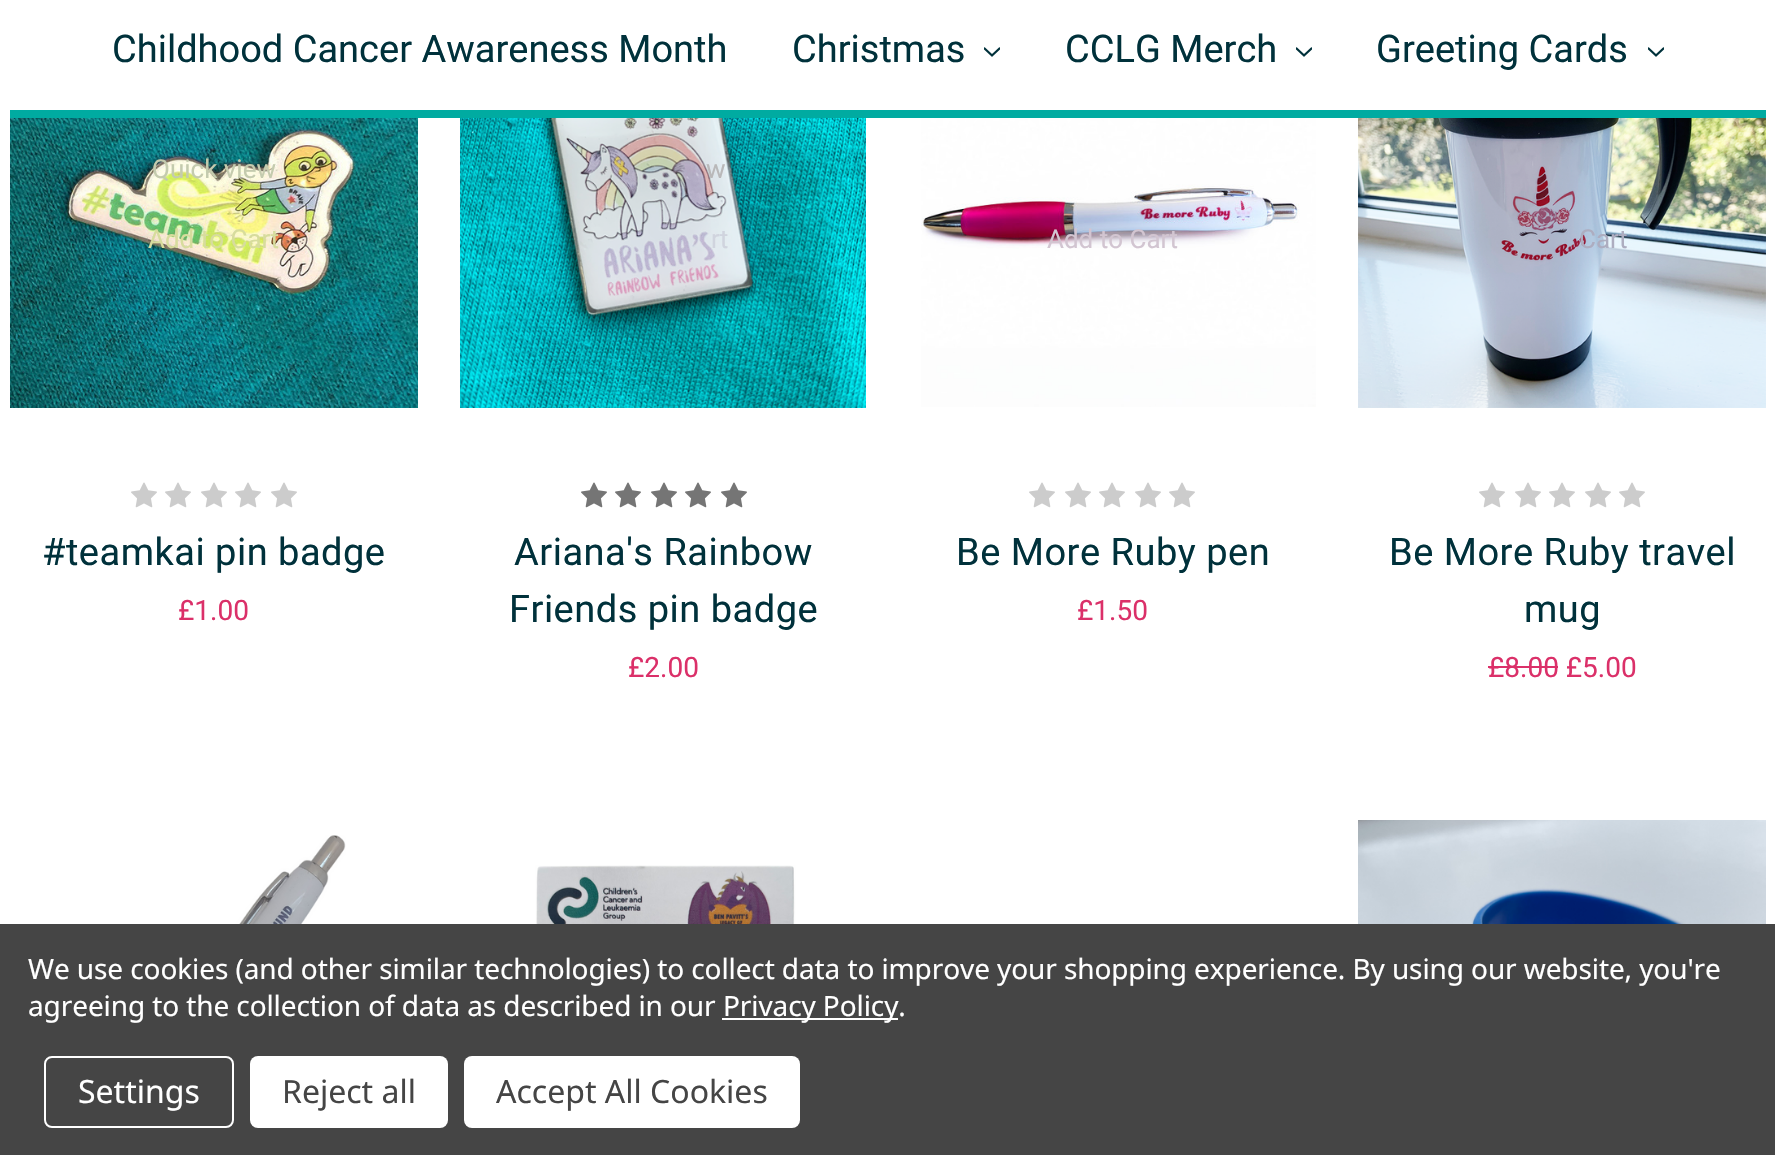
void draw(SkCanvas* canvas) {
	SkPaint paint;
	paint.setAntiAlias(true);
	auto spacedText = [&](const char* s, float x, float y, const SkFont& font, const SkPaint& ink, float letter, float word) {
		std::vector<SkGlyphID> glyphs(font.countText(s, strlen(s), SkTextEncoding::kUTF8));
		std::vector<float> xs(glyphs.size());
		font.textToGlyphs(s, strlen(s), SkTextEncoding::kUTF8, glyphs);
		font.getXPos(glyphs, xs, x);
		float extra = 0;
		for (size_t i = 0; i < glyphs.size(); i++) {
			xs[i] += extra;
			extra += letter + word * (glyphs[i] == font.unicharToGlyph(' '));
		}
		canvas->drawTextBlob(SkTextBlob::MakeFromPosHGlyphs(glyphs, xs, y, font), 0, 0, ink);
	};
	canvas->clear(0xffffffff);
	paint.setColor(0xff00aba1);
	canvas->drawRect(SkRect::MakeXYWH(10, 110, 1756, 8), paint);
	SkFont f1(fontMgr->matchFamilyStyle("Roboto", SkFontStyle::Normal()), 38);
	f1.setSubpixel(true);
	paint.setColor(0xff00313b);
	canvas->drawString("Childhood Cancer Awareness Month", 112, 62, f1, paint);
	canvas->drawString("Christmas", 792, 62, f1, paint);
	canvas->drawImageRect(SkImages::DeferredFromEncodedData(SkData::MakeFromFileName("img1.png")), SkRect::MakeXYWH(984, 47, 16, 10), SkSamplingOptions());
	canvas->drawString("CCLG Merch", 1065, 62, f1, paint);
	canvas->drawImageRect(SkImages::DeferredFromEncodedData(SkData::MakeFromFileName("img1.png")), SkRect::MakeXYWH(1296, 47, 16, 10), SkSamplingOptions());
	canvas->drawString("Greeting Cards", 1376, 62, f1, paint);
	canvas->drawImageRect(SkImages::DeferredFromEncodedData(SkData::MakeFromFileName("img1.png")), SkRect::MakeXYWH(1648, 47, 16, 10), SkSamplingOptions());
	canvas->drawImageRect(SkImages::DeferredFromEncodedData(SkData::MakeFromFileName("img2.png")), SkRect::MakeXYWH(10, 118, 408, 290), SkSamplingOptions());
	SkFont f2(fontMgr->matchFamilyStyle("Roboto", SkFontStyle::Normal()), 26);
	f2.setSubpixel(true);
	paint.setColor(0xffc4cbae);
	canvas->drawString("Quick view", 152, 178, f2, paint);
	paint.setColor(0xffd7dc9d);
	canvas->drawString("Add to Cart", 148, 248, f2, paint);
	canvas->drawImageRect(SkImages::DeferredFromEncodedData(SkData::MakeFromFileName("img3.png")), SkRect::MakeXYWH(131, 482, 26, 26), SkSamplingOptions());
	canvas->drawImageRect(SkImages::DeferredFromEncodedData(SkData::MakeFromFileName("img3.png")), SkRect::MakeXYWH(165, 482, 26, 26), SkSamplingOptions());
	canvas->drawImageRect(SkImages::DeferredFromEncodedData(SkData::MakeFromFileName("img3.png")), SkRect::MakeXYWH(201, 482, 26, 26), SkSamplingOptions());
	canvas->drawImageRect(SkImages::DeferredFromEncodedData(SkData::MakeFromFileName("img3.png")), SkRect::MakeXYWH(235, 482, 26, 26), SkSamplingOptions());
	canvas->drawImageRect(SkImages::DeferredFromEncodedData(SkData::MakeFromFileName("img3.png")), SkRect::MakeXYWH(271, 482, 26, 26), SkSamplingOptions());
	paint.setColor(0xff00313b);
	spacedText("#teamkai pin badge", 42, 565, f1, paint, 0.5, 0);
	SkFont f3(fontMgr->matchFamilyStyle("Roboto", SkFontStyle::Normal()), 28);
	f3.setSubpixel(true);
	paint.setColor(0xffdb3069);
	canvas->drawString("£1.00", 178, 620, f3, paint);
	canvas->drawImageRect(SkImages::DeferredFromEncodedData(SkData::MakeFromFileName("img4.png")), SkRect::MakeXYWH(460, 118, 406, 290), SkSamplingOptions());
	paint.setColor(0xffb9b8b9);
	canvas->drawString("w", 706, 178, f2, paint);
	paint.setColor(0xffd0d4de);
	canvas->drawString("rt", 711, 248, f2, paint);
	canvas->drawImageRect(SkImages::DeferredFromEncodedData(SkData::MakeFromFileName("img5.png")), SkRect::MakeXYWH(581, 482, 26, 26), SkSamplingOptions());
	canvas->drawImageRect(SkImages::DeferredFromEncodedData(SkData::MakeFromFileName("img5.png")), SkRect::MakeXYWH(615, 482, 26, 26), SkSamplingOptions());
	canvas->drawImageRect(SkImages::DeferredFromEncodedData(SkData::MakeFromFileName("img5.png")), SkRect::MakeXYWH(651, 482, 26, 26), SkSamplingOptions());
	canvas->drawImageRect(SkImages::DeferredFromEncodedData(SkData::MakeFromFileName("img5.png")), SkRect::MakeXYWH(685, 482, 26, 26), SkSamplingOptions());
	canvas->drawImageRect(SkImages::DeferredFromEncodedData(SkData::MakeFromFileName("img5.png")), SkRect::MakeXYWH(721, 482, 26, 26), SkSamplingOptions());
	paint.setColor(0xff00313b);
	spacedText("Ariana's Rainbow", 514, 565, f1, paint, 0.5, 0);
	spacedText("Friends pin badge", 509, 622, f1, paint, 0.5, 0);
	paint.setColor(0xffdb3069);
	canvas->drawString("£2.00", 628, 677, f3, paint);
	canvas->drawImageRect(SkImages::DeferredFromEncodedData(SkData::MakeFromFileName("img6.png")), SkRect::MakeXYWH(921, 118, 395, 289), SkSamplingOptions());
	paint.setColor(0xffd2c5d1);
	canvas->drawString("Add to Cart", 1047, 248, f2, paint);
	canvas->drawImageRect(SkImages::DeferredFromEncodedData(SkData::MakeFromFileName("img3.png")), SkRect::MakeXYWH(1029, 482, 26, 26), SkSamplingOptions());
	canvas->drawImageRect(SkImages::DeferredFromEncodedData(SkData::MakeFromFileName("img3.png")), SkRect::MakeXYWH(1065, 482, 26, 26), SkSamplingOptions());
	canvas->drawImageRect(SkImages::DeferredFromEncodedData(SkData::MakeFromFileName("img3.png")), SkRect::MakeXYWH(1099, 482, 26, 26), SkSamplingOptions());
	canvas->drawImageRect(SkImages::DeferredFromEncodedData(SkData::MakeFromFileName("img3.png")), SkRect::MakeXYWH(1135, 482, 26, 26), SkSamplingOptions());
	canvas->drawImageRect(SkImages::DeferredFromEncodedData(SkData::MakeFromFileName("img3.png")), SkRect::MakeXYWH(1169, 482, 26, 26), SkSamplingOptions());
	paint.setColor(0xff00313b);
	spacedText("Be More Ruby pen", 956, 565, f1, paint, 0.5, 0);
	paint.setColor(0xffdb3069);
	canvas->drawString("£1.50", 1077, 620, f3, paint);
	canvas->drawImageRect(SkImages::DeferredFromEncodedData(SkData::MakeFromFileName("img7.png")), SkRect::MakeXYWH(1358, 118, 408, 290), SkSamplingOptions());
	paint.setColor(0xffadadc0);
	canvas->drawString("Cart", 1579, 248, f2, paint);
	canvas->drawImageRect(SkImages::DeferredFromEncodedData(SkData::MakeFromFileName("img3.png")), SkRect::MakeXYWH(1479, 482, 26, 26), SkSamplingOptions());
	canvas->drawImageRect(SkImages::DeferredFromEncodedData(SkData::MakeFromFileName("img3.png")), SkRect::MakeXYWH(1515, 482, 26, 26), SkSamplingOptions());
	canvas->drawImageRect(SkImages::DeferredFromEncodedData(SkData::MakeFromFileName("img3.png")), SkRect::MakeXYWH(1549, 482, 26, 26), SkSamplingOptions());
	canvas->drawImageRect(SkImages::DeferredFromEncodedData(SkData::MakeFromFileName("img3.png")), SkRect::MakeXYWH(1585, 482, 26, 26), SkSamplingOptions());
	canvas->drawImageRect(SkImages::DeferredFromEncodedData(SkData::MakeFromFileName("img3.png")), SkRect::MakeXYWH(1619, 482, 26, 26), SkSamplingOptions());
	paint.setColor(0xff00313b);
	spacedText("Be More Ruby travel", 1389, 565, f1, paint, 0.5, 0);
	spacedText("mug", 1524, 622, f1, paint, 0.5, 0);
	paint.setColor(0xffdb3069);
	canvas->drawString("£8.00 £5.00", 1488, 677, f3, paint);
	canvas->drawRect(SkRect::MakeXYWH(1488, 666, 70, 2), paint);
	canvas->drawImageRect(SkImages::DeferredFromEncodedData(SkData::MakeFromFileName("img8.png")), SkRect::MakeXYWH(91, 835, 255, 89), SkSamplingOptions());
	canvas->drawImageRect(SkImages::DeferredFromEncodedData(SkData::MakeFromFileName("img9.png")), SkRect::MakeXYWH(535, 865, 261, 59), SkSamplingOptions());
	canvas->drawImageRect(SkImages::DeferredFromEncodedData(SkData::MakeFromFileName("img10.png")), SkRect::MakeXYWH(1358, 820, 408, 104), SkSamplingOptions());
	paint.setColor(0xff454545);
	canvas->drawRect(SkRect::MakeXYWH(0, 924, 1775, 231), paint);
	SkFont f4(fontMgr->matchFamilyStyle("Noto Sans", SkFontStyle::Normal()), 28);
	f4.setSubpixel(true);
	paint.setColor(0xffffffff);
	spacedText("We use cookies (and other similar technologies) to collect data to improve your shopping experience. By using our website, you're", 28, 979, f4, paint, -0.1, 0);
	spacedText("agreeing to the collection of data as described in our", 28, 1016, f4, paint, -0.1, 0);
	canvas->drawRect(SkRect::MakeXYWH(722, 1018, 176, 2), paint);
	spacedText("Privacy Policy.", 723, 1016, f4, paint, -0.1, 0);
	paint.setStroke(true);
	paint.setStrokeWidth(2);
	canvas->drawRoundRect(SkRect::MakeXYWH(45, 1057, 188, 70), 7, 7, paint);
	SkFont f5(fontMgr->matchFamilyStyle("Noto Sans", SkFontStyle::Normal()), 32);
	f5.setSubpixel(true);
	paint.setStroke(false);
	canvas->drawString("Settings", 78, 1103, f5, paint);
	canvas->drawRoundRect(SkRect::MakeXYWH(250, 1056, 198, 72), 8, 8, paint);
	paint.setColor(0xff454545);
	canvas->drawString("Reject all", 282, 1103, f5, paint);
	paint.setColor(0xffffffff);
	canvas->drawRoundRect(SkRect::MakeXYWH(464, 1056, 336, 72), 8, 8, paint);
	paint.setColor(0xff454545);
	canvas->drawString("Accept All Cookies", 496, 1103, f5, paint);
}
